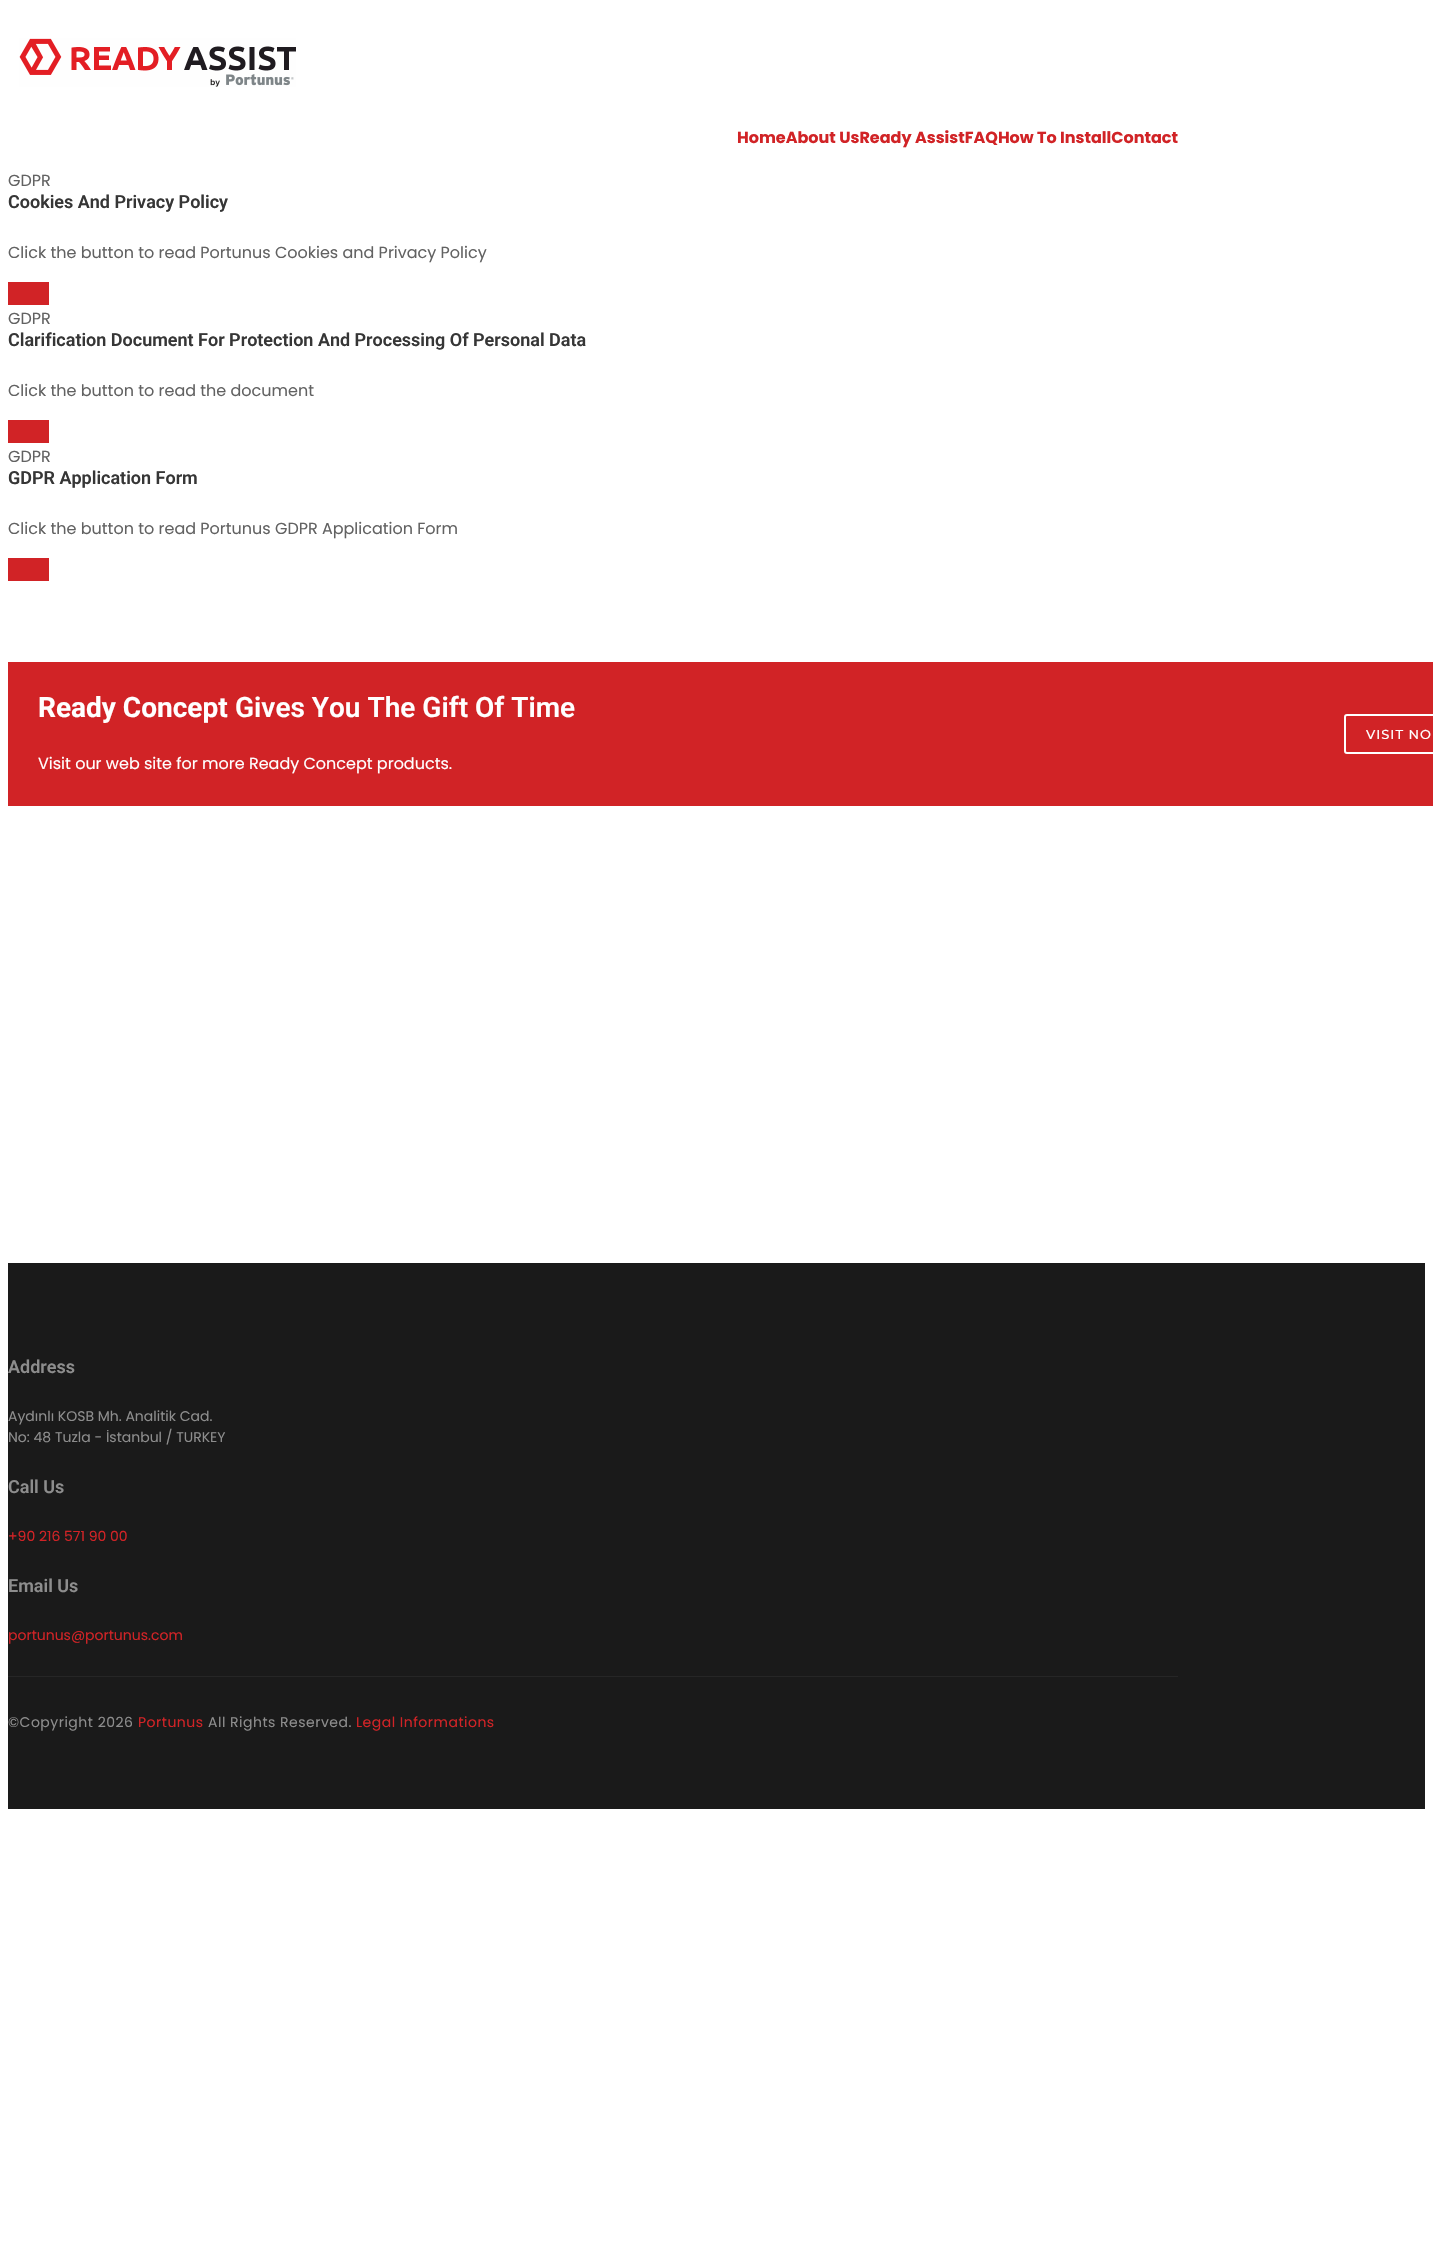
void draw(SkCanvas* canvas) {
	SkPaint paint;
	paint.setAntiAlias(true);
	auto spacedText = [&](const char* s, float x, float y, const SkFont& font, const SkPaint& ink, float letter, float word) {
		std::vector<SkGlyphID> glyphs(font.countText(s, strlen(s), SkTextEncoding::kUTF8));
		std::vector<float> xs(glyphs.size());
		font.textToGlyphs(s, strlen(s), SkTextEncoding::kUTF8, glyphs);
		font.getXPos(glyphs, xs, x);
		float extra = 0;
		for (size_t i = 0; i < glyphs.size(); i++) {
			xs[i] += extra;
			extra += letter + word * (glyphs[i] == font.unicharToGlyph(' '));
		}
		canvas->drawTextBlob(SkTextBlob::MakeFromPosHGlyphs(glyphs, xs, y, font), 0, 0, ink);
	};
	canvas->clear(0xffffffff);
	canvas->drawImageRect(SkImages::DeferredFromEncodedData(SkData::MakeFromFileName("img1.png")), SkRect::MakeXYWH(19, 38, 277, 49), SkSamplingOptions());
	SkFont f1(fontMgr->matchFamilyStyle("Poppins", SkFontStyle::Bold()), 16);
	f1.setSubpixel(true);
	paint.setColor(0xffd12326);
	canvas->drawString("HomeAbout UsReady AssistFAQHow To InstallContact", 737, 143, f1, paint);
	SkFont f2(fontMgr->matchFamilyStyle("Poppins", SkFontStyle::Normal()), 16);
	f2.setSubpixel(true);
	paint.setColor(0xff626262);
	canvas->drawString("GDPR", 8, 186, f2, paint);
	SkFont f3(fontMgr->matchFamilyStyle("Roboto", SkFontStyle(600, SkFontStyle::kNormal_Width, SkFontStyle::kUpright_Slant)), 18);
	f3.setSubpixel(true);
	paint.setColor(0xff363636);
	canvas->drawString("Cookies And Privacy Policy", 8, 208, f3, paint);
	paint.setColor(0xff626262);
	canvas->drawString("Click the button to read Portunus Cookies and Privacy Policy", 8, 258, f2, paint);
	paint.setColor(0xffd12326);
	canvas->drawRect(SkRect::MakeXYWH(8, 282, 41, 23), paint);
	paint.setColor(0xff626262);
	canvas->drawString("GDPR", 8, 324, f2, paint);
	paint.setColor(0xff363636);
	canvas->drawString("Clarification Document For Protection And Processing Of Personal Data", 8, 346, f3, paint);
	paint.setColor(0xff626262);
	canvas->drawString("Click the button to read the document", 8, 396, f2, paint);
	paint.setColor(0xffd12326);
	canvas->drawRect(SkRect::MakeXYWH(8, 420, 41, 23), paint);
	paint.setColor(0xff626262);
	canvas->drawString("GDPR", 8, 462, f2, paint);
	paint.setColor(0xff363636);
	canvas->drawString("GDPR Application Form", 8, 484, f3, paint);
	paint.setColor(0xff626262);
	canvas->drawString("Click the button to read Portunus GDPR Application Form", 8, 534, f2, paint);
	paint.setColor(0xffd12326);
	canvas->drawRect(SkRect::MakeXYWH(8, 558, 41, 23), paint);
	canvas->drawRect(SkRect::MakeXYWH(8, 662, 1425, 144), paint);
	SkFont f4(fontMgr->matchFamilyStyle("Roboto", SkFontStyle::Bold()), 28);
	f4.setSubpixel(true);
	paint.setColor(0xffffffff);
	canvas->drawString("Ready Concept", 38, 717, f4, paint);
	SkFont f5(fontMgr->matchFamilyStyle("Roboto", SkFontStyle(600, SkFontStyle::kNormal_Width, SkFontStyle::kUpright_Slant)), 28);
	f5.setSubpixel(true);
	canvas->drawString("Gives You The Gift Of Time", 235, 717, f5, paint);
	canvas->drawString("Visit our web site for more Ready Concept products.", 38, 769, f2, paint);
	paint.setStroke(true);
	paint.setStrokeWidth(2);
	canvas->drawRoundRect(SkRect::MakeXYWH(1345, 715, 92, 38), 2, 2, paint);
	SkFont f6(fontMgr->matchFamilyStyle("Montserrat", SkFontStyle(500, SkFontStyle::kNormal_Width, SkFontStyle::kUpright_Slant)), 13);
	f6.setSubpixel(true);
	paint.setStroke(false);
	spacedText("VISIT NO", 1366, 739, f6, paint, 1, 0);
	paint.setColor(0xff1a1a1a);
	canvas->drawRect(SkRect::MakeXYWH(8, 1263, 1417, 546), paint);
	paint.setColor(0xff8d8d8d);
	canvas->drawString("Address", 8, 1373, f3, paint);
	SkFont f7(fontMgr->matchFamilyStyle("Poppins", SkFontStyle::Normal()), 14);
	f7.setSubpixel(true);
	canvas->drawString("Aydınlı KOSB Mh. Analitik Cad.", 8, 1421, f7, paint);
	canvas->drawString("No: 48 Tuzla - İstanbul / TURKEY", 8, 1442, f7, paint);
	canvas->drawString("Call Us", 8, 1493, f3, paint);
	paint.setColor(0xffd12326);
	canvas->drawString("+90 216 571 90 00", 8, 1541, f7, paint);
	paint.setColor(0xff8d8d8d);
	canvas->drawString("Email Us", 8, 1592, f3, paint);
	paint.setColor(0xffd12326);
	canvas->drawString("portunus@portunus.com", 8, 1640, f7, paint);
	paint.setColor(0xff262626);
	canvas->drawRect(SkRect::MakeXYWH(8, 1676, 1170, 1), paint);
	paint.setColor(0xff8d8d8d);
	spacedText("©Copyright 2026", 8, 1727, f7, paint, 0.5, 0);
	paint.setColor(0xffd12326);
	spacedText("Portunus", 138, 1727, f7, paint, 0.5, 0);
	paint.setColor(0xff8d8d8d);
	spacedText("All Rights Reserved.", 208, 1727, f7, paint, 0.5, 0);
	paint.setColor(0xffd12326);
	spacedText("Legal Informations", 356, 1727, f7, paint, 0.5, 0);
}
